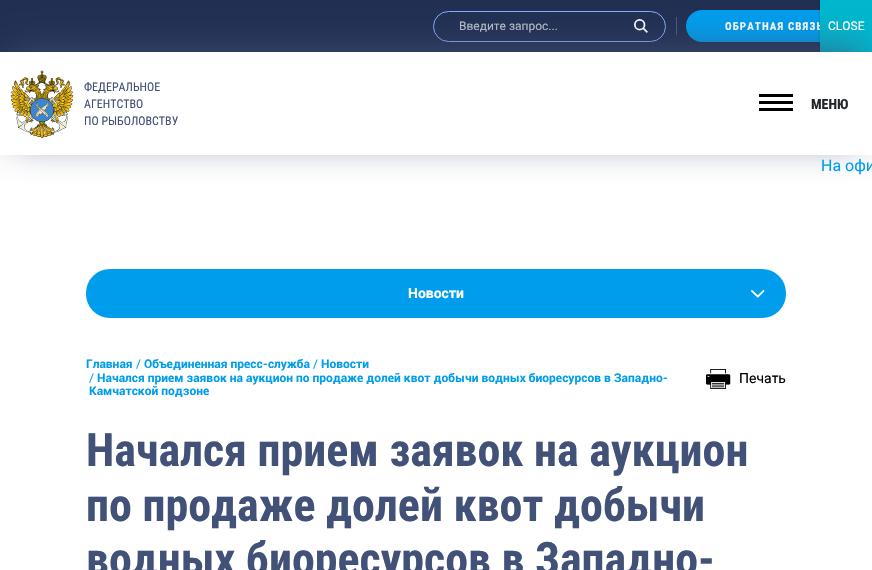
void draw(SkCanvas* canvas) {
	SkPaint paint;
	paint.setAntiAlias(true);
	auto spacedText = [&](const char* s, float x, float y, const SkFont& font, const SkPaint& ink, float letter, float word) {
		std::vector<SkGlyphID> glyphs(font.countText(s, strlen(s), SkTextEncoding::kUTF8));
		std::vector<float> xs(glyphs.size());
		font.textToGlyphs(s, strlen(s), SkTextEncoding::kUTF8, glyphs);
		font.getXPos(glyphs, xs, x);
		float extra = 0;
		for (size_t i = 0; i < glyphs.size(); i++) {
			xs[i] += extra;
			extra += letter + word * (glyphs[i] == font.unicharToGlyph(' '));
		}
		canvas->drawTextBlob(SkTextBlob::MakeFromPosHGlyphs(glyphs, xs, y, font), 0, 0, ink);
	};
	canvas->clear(0xffffffff);
	paint.setColor(0xff212f52);
	canvas->drawRect(SkRect::MakeXYWH(0, 0, 820, 52), paint);
	paint.setColor(0xff009dec);
	canvas->drawRoundRect(SkRect::MakeXYWH(687, 11, 174, 30), 15, 15, paint);
	paint.setStroke(true);
	paint.setStrokeWidth(2);
	canvas->drawRoundRect(SkRect::MakeXYWH(687, 11, 174, 30), 15, 15, paint);
	paint.setStroke(false);
	paint.setColor(0x3b020202);
	paint.setMaskFilter(SkMaskFilter::MakeBlur(kNormal_SkBlurStyle, 1.5));
	canvas->drawRect(SkRect::MakeXYWH(821, 1, 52, 52), paint);
	paint.setMaskFilter(nullptr);
	paint.setStroke(true);
	paint.setStrokeWidth(1);
	paint.setColor(0xff89aaff);
	canvas->drawRoundRect(SkRect::MakeXYWH(433.5, 11.5, 232, 30), 15, 15, paint);
	SkFont f1(fontMgr->matchFamilyStyle("Roboto", SkFontStyle::Normal()), 12);
	f1.setSubpixel(true);
	paint.setStroke(false);
	paint.setColor(0xffbcc1cb);
	canvas->drawString("Введите запрос...", 459, 30, f1, paint);
	canvas->drawImageRect(SkImages::DeferredFromEncodedData(SkData::MakeFromFileName("img1.png")), SkRect::MakeXYWH(634, 19, 14, 14), SkSamplingOptions());
	paint.setColor(0xff4d5975);
	canvas->drawRect(SkRect::MakeXYWH(676, 17, 1, 18), paint);
	SkFont f2(fontMgr->matchFamilyStyle("Roboto Condensed", SkFontStyle::Bold()), 11);
	f2.setSubpixel(true);
	paint.setColor(0xffffffff);
	spacedText("ОБРАТНАЯ СВЯЗЬ", 725, 30, f2, paint, 1.1, 0);
	paint.setColor(0x3b020202);
	paint.setMaskFilter(SkMaskFilter::MakeBlur(kNormal_SkBlurStyle, 1.5));
	canvas->drawRect(SkRect::MakeXYWH(821, 1, 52, 52), paint);
	paint.setMaskFilter(nullptr);
	paint.setColor(0xff00b7cd);
	canvas->drawRect(SkRect::MakeXYWH(820, 0, 52, 52), paint);
	paint.setColor(0xff425177);
	paint.setMaskFilter(SkMaskFilter::MakeBlur(kNormal_SkBlurStyle, 20));
	canvas->drawRect(SkRect::MakeXYWH(11, 55, 850, 81), paint);
	paint.setMaskFilter(nullptr);
	paint.setColor(0xffffffff);
	canvas->drawRect(SkRect::MakeXYWH(0, 52, 872, 103), paint);
	canvas->drawImageRect(SkImages::DeferredFromEncodedData(SkData::MakeFromFileName("img2.png")), SkRect::MakeXYWH(10, 70, 64, 69), SkSamplingOptions());
	SkFont f3(fontMgr->matchFamilyStyle("Roboto Condensed", SkFontStyle::Normal()), 12);
	f3.setSubpixel(true);
	paint.setColor(0xff425177);
	canvas->drawString("ФЕДЕРАЛЬНОЕ", 84, 91, f3, paint);
	canvas->drawString("АГЕНТСТВО", 84, 108, f3, paint);
	canvas->drawString("ПО РЫБОЛОВСТВУ", 84, 125, f3, paint);
	paint.setColor(0xff000000);
	canvas->drawRect(SkRect::MakeXYWH(759, 94, 34, 3), paint);
	canvas->drawRect(SkRect::MakeXYWH(759, 101, 34, 3), paint);
	canvas->drawRect(SkRect::MakeXYWH(759, 108, 34, 3), paint);
	SkFont f4(fontMgr->matchFamilyStyle("Roboto Condensed", SkFontStyle::Bold()), 14);
	f4.setSubpixel(true);
	paint.setColor(0xff212529);
	canvas->drawString("МЕНЮ", 811, 109, f4, paint);
	SkFont f5(fontMgr->matchFamilyStyle("Roboto", SkFontStyle::Normal()), 16);
	f5.setSubpixel(true);
	paint.setColor(0xff009dec);
	canvas->drawString("На офи", 821, 171, f5, paint);
	canvas->drawRoundRect(SkRect::MakeXYWH(86, 269, 700, 49), 24, 24, paint);
	SkFont f6(fontMgr->matchFamilyStyle("Roboto", SkFontStyle::Bold()), 14);
	f6.setSubpixel(true);
	paint.setColor(0xffffffff);
	canvas->drawString("Новости", 408, 298, f6, paint);
	canvas->drawImageRect(SkImages::DeferredFromEncodedData(SkData::MakeFromFileName("img3.png")), SkRect::MakeXYWH(751, 289, 14, 9), SkSamplingOptions());
	SkFont f7(fontMgr->matchFamilyStyle("Roboto", SkFontStyle::Bold()), 12);
	f7.setSubpixel(true);
	paint.setColor(0xff009dec);
	canvas->drawString("Главная", 86, 368, f7, paint);
	canvas->drawString("/", 136, 368, f1, paint);
	canvas->drawString("Объединенная пресс-служба", 144, 368, f7, paint);
	canvas->drawString("/", 313, 368, f1, paint);
	canvas->drawString("Новости", 321, 368, f7, paint);
	canvas->drawString("/", 89, 382, f1, paint);
	canvas->drawString("Начался прием заявок на аукцион по продаже долей квот добычи водных биоресурсов в Западно-", 97, 382, f7, paint);
	canvas->drawString("Камчатской подзоне", 89, 395, f7, paint);
	canvas->drawImageRect(SkImages::DeferredFromEncodedData(SkData::MakeFromFileName("img4.png")), SkRect::MakeXYWH(706, 369, 25, 20), SkSamplingOptions());
	SkFont f8(fontMgr->matchFamilyStyle("Roboto", SkFontStyle::Normal()), 14);
	f8.setSubpixel(true);
	paint.setColor(0xff000000);
	canvas->drawString("Печать", 739, 383, f8, paint);
	SkFont f9(fontMgr->matchFamilyStyle("Roboto Condensed", SkFontStyle::Bold()), 46);
	f9.setSubpixel(true);
	paint.setColor(0xff425177);
	canvas->drawString("Начался прием заявок на аукцион", 86, 466, f9, paint);
	canvas->drawString("по продаже долей квот добычи", 86, 521, f9, paint);
	canvas->drawString("водных биоресурсов в Западно-", 86, 575, f9, paint);
	paint.setColor(0xffffffff);
	canvas->drawString("CLOSE", 828, 30, f1, paint);
}
